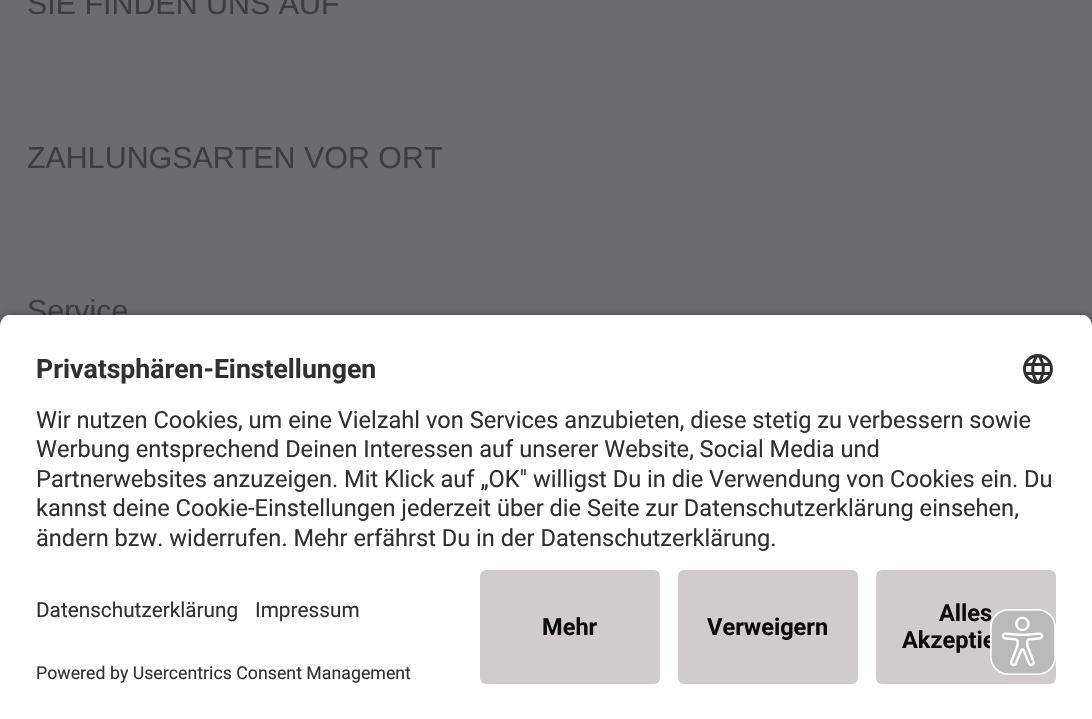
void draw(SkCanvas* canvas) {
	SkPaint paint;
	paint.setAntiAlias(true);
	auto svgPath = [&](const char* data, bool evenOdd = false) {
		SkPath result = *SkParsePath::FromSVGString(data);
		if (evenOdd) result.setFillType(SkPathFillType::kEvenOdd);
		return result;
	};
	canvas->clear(0xff696d6f);
	SkFont f1(fontMgr->matchFamilyStyle("Liberation Sans", SkFontStyle::Normal()), 30.4);
	f1.setSubpixel(true);
	paint.setColor(0xff3a3d41);
	canvas->drawString("SIE FINDEN UNS AUF", 27, 14, f1, paint);
	canvas->drawString("ZAHLUNGSARTEN VOR ORT", 27, 168, f1, paint);
	canvas->drawString("Service", 27, 321, f1, paint);
	paint.setColor(0xcc000000);
	paint.setMaskFilter(SkMaskFilter::MakeBlur(kNormal_SkBlurStyle, 5));
	canvas->drawRoundRect(SkRect::MakeXYWH(0, 318, 1092, 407), 12, 12, paint);
	paint.setMaskFilter(nullptr);
	canvas->save();
	canvas->clipPath(svgPath("M12 314H1080C1086.5 314 1092 319.5 1092 326V558H0V326C0 319.5 5.5 314 12 314Z"), true);
	paint.setColor(0xffffffff);
	canvas->drawRect(SkRect::MakeXYWH(0, 315, 1092, 243), paint);
	canvas->restore();
	SkFont f2(fontMgr->matchFamilyStyle("Roboto", SkFontStyle::Bold()), 26.6);
	f2.setSubpixel(true);
	paint.setColor(0xff303030);
	canvas->drawString("Privatsphären-Einstellungen", 36, 378, f2, paint);
	canvas->drawImageRect(SkImages::DeferredFromEncodedData(SkData::MakeFromFileName("img1.png")), SkRect::MakeXYWH(1023, 354, 30, 30), SkSamplingOptions());
	SkFont f3(fontMgr->matchFamilyStyle("Roboto", SkFontStyle::Normal()), 23.6);
	f3.setSubpixel(true);
	canvas->drawString("Wir nutzen Cookies, um eine Vielzahl von Services anzubieten, diese stetig zu verbessern sowie", 36, 428, f3, paint);
	canvas->drawString("Werbung entsprechend Deinen Interessen auf unserer Website, Social Media und", 36, 457, f3, paint);
	canvas->drawString("Partnerwebsites anzuzeigen. Mit Klick auf „OK\" willigst Du in die Verwendung von Cookies ein. Du", 36, 487, f3, paint);
	canvas->drawString("kannst deine Cookie-Einstellungen jederzeit über die Seite zur Datenschutzerklärung einsehen,", 36, 516, f3, paint);
	canvas->drawString("ändern bzw. widerrufen. Mehr erfährst Du in der Datenschutzerklärung.", 36, 546, f3, paint);
	paint.setColor(0xffffffff);
	canvas->drawRect(SkRect::MakeXYWH(0, 558, 1092, 161), paint);
	SkFont f4(fontMgr->matchFamilyStyle("Roboto", SkFontStyle::Normal()), 20.75);
	f4.setSubpixel(true);
	paint.setColor(0xff303030);
	canvas->drawString("Datenschutzerklärung", 36, 617, f4, paint);
	canvas->drawString("Impressum", 255, 617, f4, paint);
	SkFont f5(fontMgr->matchFamilyStyle("Roboto", SkFontStyle::Normal()), 17.75);
	f5.setSubpixel(true);
	canvas->drawString("Powered by Usercentrics Consent Management", 36, 679, f5, paint);
	paint.setColor(0xffd0cccc);
	canvas->drawRoundRect(SkRect::MakeXYWH(480, 570, 180, 114), 6, 6, paint);
	SkFont f6(fontMgr->matchFamilyStyle("Roboto", SkFontStyle::Bold()), 23.6);
	f6.setSubpixel(true);
	paint.setColor(0xff0c0c0c);
	canvas->drawString("Mehr", 542, 635, f6, paint);
	paint.setColor(0xffd0cccc);
	canvas->drawRoundRect(SkRect::MakeXYWH(678, 570, 180, 114), 6, 6, paint);
	paint.setColor(0xff0c0c0c);
	canvas->drawString("Verweigern", 707, 635, f6, paint);
	paint.setColor(0xffd0cccc);
	canvas->drawRoundRect(SkRect::MakeXYWH(876, 570, 180, 114), 6, 6, paint);
	paint.setColor(0xff0c0c0c);
	canvas->drawString("Alles", 939, 621, f6, paint);
	canvas->drawString("Akzeptie", 902, 648, f6, paint);
	canvas->drawImageRect(SkImages::DeferredFromEncodedData(SkData::MakeFromFileName("img2.png")), SkRect::MakeXYWH(990, 609, 66, 66), SkSamplingOptions());
}
